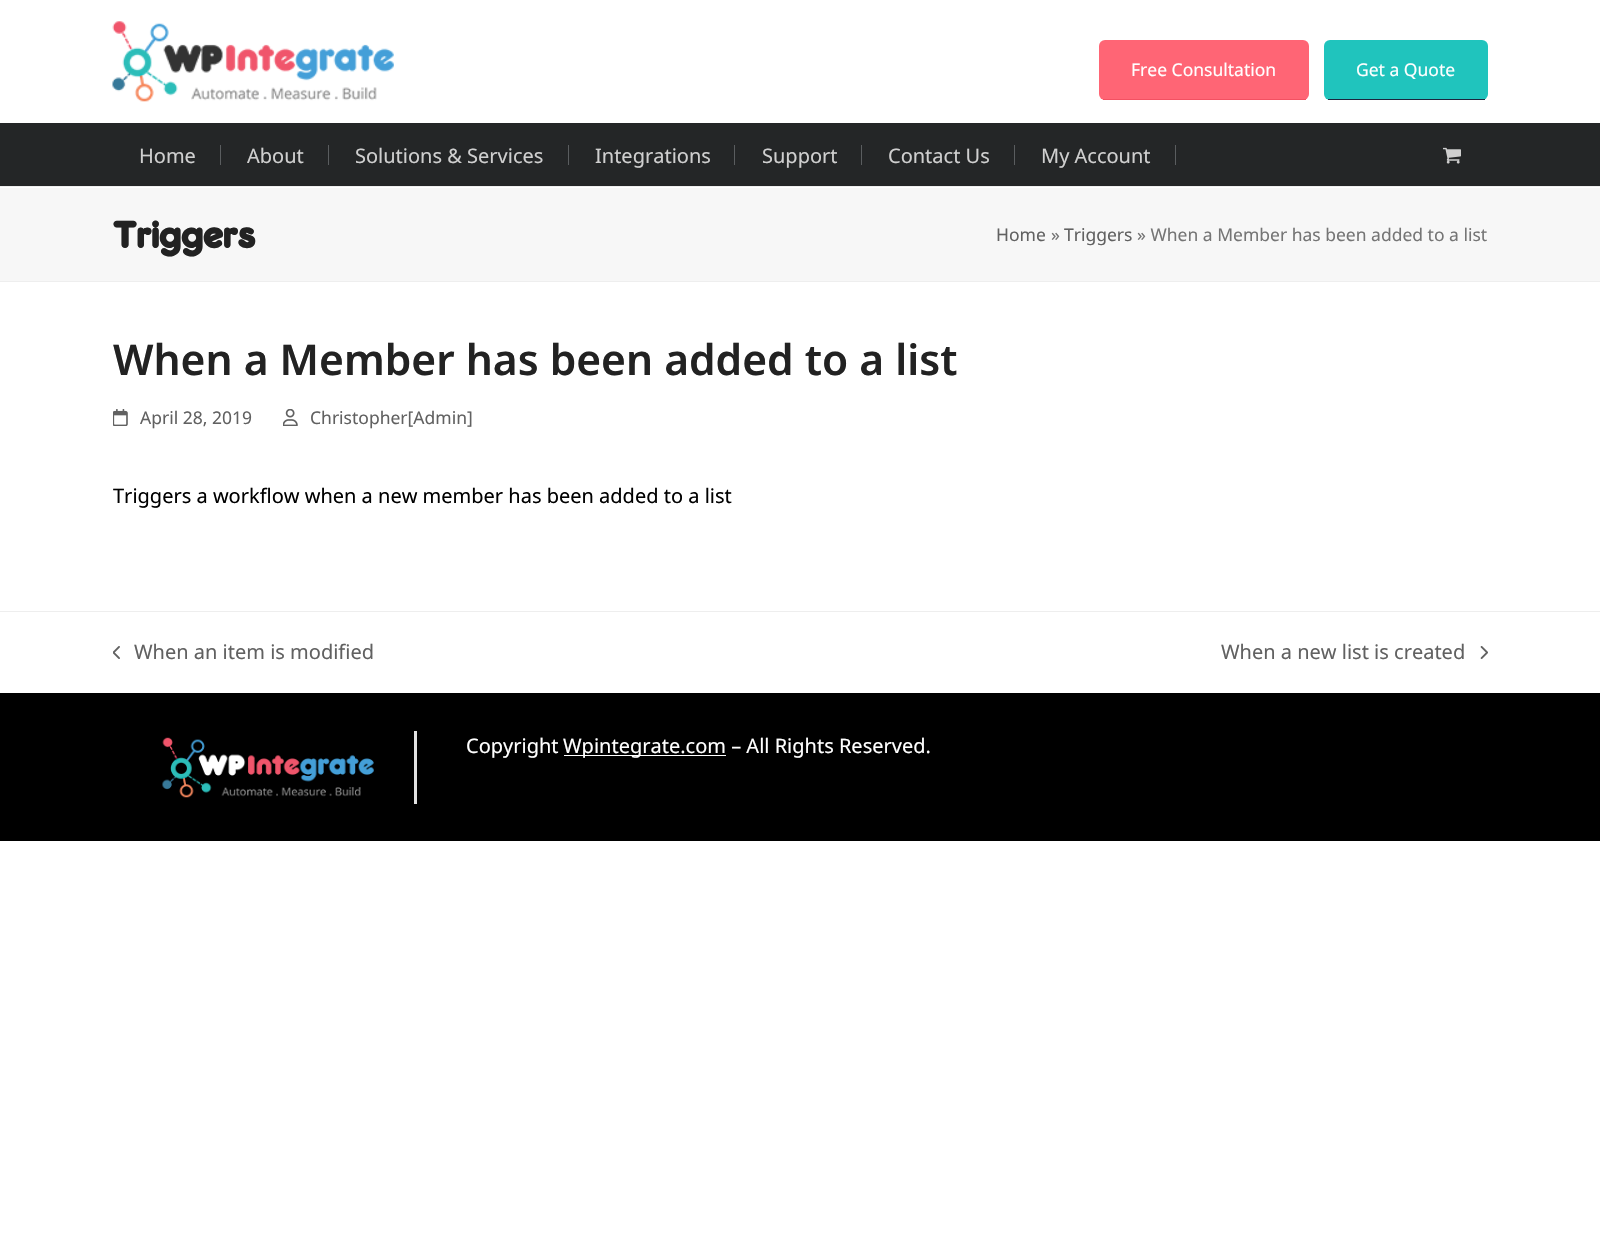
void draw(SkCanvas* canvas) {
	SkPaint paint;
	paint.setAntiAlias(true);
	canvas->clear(0xffffffff);
	canvas->drawImageRect(SkImages::DeferredFromEncodedData(SkData::MakeFromFileName("img1.png")), SkRect::MakeXYWH(112, 21, 282, 81), SkSamplingOptions());
	paint.setColor(0xffff6575);
	canvas->drawRoundRect(SkRect::MakeXYWH(1099, 40, 210, 60), 6, 6, paint);
	paint.setColor(0xfff35162);
	canvas->drawRect(SkRect::MakeXYWH(1103, 99, 203, 1), paint);
	SkFont f1(fontMgr->matchFamilyStyle("Noto Sans", SkFontStyle::Normal()), 17.5);
	f1.setSubpixel(true);
	paint.setColor(0xffffffff);
	canvas->drawString("Free Consultation", 1131, 76, f1, paint);
	paint.setColor(0xff20c4bd);
	canvas->drawRoundRect(SkRect::MakeXYWH(1324, 40, 164, 60), 6, 6, paint);
	paint.setColor(0xff1b263e);
	canvas->drawRect(SkRect::MakeXYWH(1328, 99, 157, 1), paint);
	paint.setColor(0xffffffff);
	canvas->drawString("Get a Quote", 1356, 76, f1, paint);
	paint.setColor(0xff242627);
	canvas->drawRect(SkRect::MakeXYWH(0, 123, 1600, 63), paint);
	SkFont f2(fontMgr->matchFamilyStyle("Noto Sans", SkFontStyle::Normal()), 20);
	f2.setSubpixel(true);
	paint.setColor(0xffcfcfcf);
	canvas->drawString("Home", 139, 163, f2, paint);
	paint.setColor(0xff5a5d5f);
	canvas->drawRect(SkRect::MakeXYWH(220, 145, 1, 20), paint);
	paint.setColor(0xffcfcfcf);
	canvas->drawString("About", 247, 163, f2, paint);
	paint.setColor(0xff5a5d5f);
	canvas->drawRect(SkRect::MakeXYWH(328, 145, 1, 20), paint);
	paint.setColor(0xffcfcfcf);
	canvas->drawString("Solutions & Services", 355, 163, f2, paint);
	paint.setColor(0xff5a5d5f);
	canvas->drawRect(SkRect::MakeXYWH(568, 145, 1, 20), paint);
	paint.setColor(0xffcfcfcf);
	canvas->drawString("Integrations", 595, 163, f2, paint);
	paint.setColor(0xff5a5d5f);
	canvas->drawRect(SkRect::MakeXYWH(734, 145, 1, 20), paint);
	paint.setColor(0xffcfcfcf);
	canvas->drawString("Support", 762, 163, f2, paint);
	paint.setColor(0xff5a5d5f);
	canvas->drawRect(SkRect::MakeXYWH(861, 145, 1, 20), paint);
	paint.setColor(0xffcfcfcf);
	canvas->drawString("Contact Us", 888, 163, f2, paint);
	paint.setColor(0xff5a5d5f);
	canvas->drawRect(SkRect::MakeXYWH(1014, 145, 1, 20), paint);
	paint.setColor(0xffcfcfcf);
	canvas->drawString("My Account", 1041, 163, f2, paint);
	paint.setColor(0xff5a5d5f);
	canvas->drawRect(SkRect::MakeXYWH(1175, 145, 1, 20), paint);
	canvas->drawImageRect(SkImages::DeferredFromEncodedData(SkData::MakeFromFileName("img2.png")), SkRect::MakeXYWH(1443, 147, 18, 17), SkSamplingOptions());
	paint.setColor(0xfff7f7f7);
	canvas->drawRect(SkRect::MakeXYWH(0, 188, 1600, 93), paint);
	paint.setColor(0xffeeeeee);
	canvas->drawRect(SkRect::MakeXYWH(0, 186, 1600, 1), paint);
	canvas->drawRect(SkRect::MakeXYWH(0, 281, 1600, 1), paint);
	SkFont f3(fontMgr->matchFamilyStyle("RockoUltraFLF", SkFontStyle::Bold()), 35);
	f3.setSubpixel(true);
	paint.setColor(0xff222222);
	canvas->drawString("Triggers", 113, 248, f3, paint);
	paint.setColor(0xff616161);
	canvas->drawString("Home", 996, 241, f1, paint);
	paint.setColor(0xff757575);
	canvas->drawString("»", 1051, 241, f1, paint);
	paint.setColor(0xff616161);
	canvas->drawString("Triggers", 1064, 241, f1, paint);
	paint.setColor(0xff757575);
	canvas->drawString("» When a Member has been added to a list", 1137, 241, f1, paint);
	SkFont f4(fontMgr->matchFamilyStyle("Noto Sans", SkFontStyle(600, SkFontStyle::kNormal_Width, SkFontStyle::kUpright_Slant)), 42.5);
	f4.setSubpixel(true);
	paint.setColor(0xff222222);
	canvas->drawString("When a Member has been added to a list", 113, 375, f4, paint);
	canvas->drawImageRect(SkImages::DeferredFromEncodedData(SkData::MakeFromFileName("img3.png")), SkRect::MakeXYWH(113, 409, 15, 17), SkSamplingOptions());
	paint.setColor(0xff616161);
	canvas->drawString("April 28, 2019", 140, 424, f1, paint);
	canvas->drawImageRect(SkImages::DeferredFromEncodedData(SkData::MakeFromFileName("img4.png")), SkRect::MakeXYWH(283, 409, 15, 17), SkSamplingOptions());
	canvas->drawString("Christopher[Admin]", 310, 424, f1, paint);
	paint.setColor(0xff000000);
	canvas->drawString("Triggers a workflow when a new member has been added to a list", 113, 503, f2, paint);
	paint.setColor(0xffeeeeee);
	canvas->drawRect(SkRect::MakeXYWH(0, 611, 1600, 1), paint);
	canvas->drawImageRect(SkImages::DeferredFromEncodedData(SkData::MakeFromFileName("img5.png")), SkRect::MakeXYWH(113, 646, 7, 13), SkSamplingOptions());
	paint.setColor(0xff616161);
	canvas->drawString("When an item is modified", 134, 659, f2, paint);
	canvas->drawString("When a new list is created", 1221, 659, f2, paint);
	canvas->drawImageRect(SkImages::DeferredFromEncodedData(SkData::MakeFromFileName("img6.png")), SkRect::MakeXYWH(1480, 646, 8, 13), SkSamplingOptions());
	paint.setColor(0xff000000);
	canvas->drawRect(SkRect::MakeXYWH(0, 693, 1600, 148), paint);
	paint.setColor(0xffe2e2e2);
	canvas->drawRect(SkRect::MakeXYWH(414, 731, 3, 73), paint);
	canvas->drawImageRect(SkImages::DeferredFromEncodedData(SkData::MakeFromFileName("img7.png")), SkRect::MakeXYWH(162, 737, 212, 61), SkSamplingOptions());
	paint.setColor(0xffffffff);
	canvas->drawString("Copyright", 466, 753, f2, paint);
	canvas->drawRect(SkRect::MakeXYWH(564, 755, 162, 1), paint);
	canvas->drawString("Wpintegrate.com – All Rights Reserved.", 563, 753, f2, paint);
}
